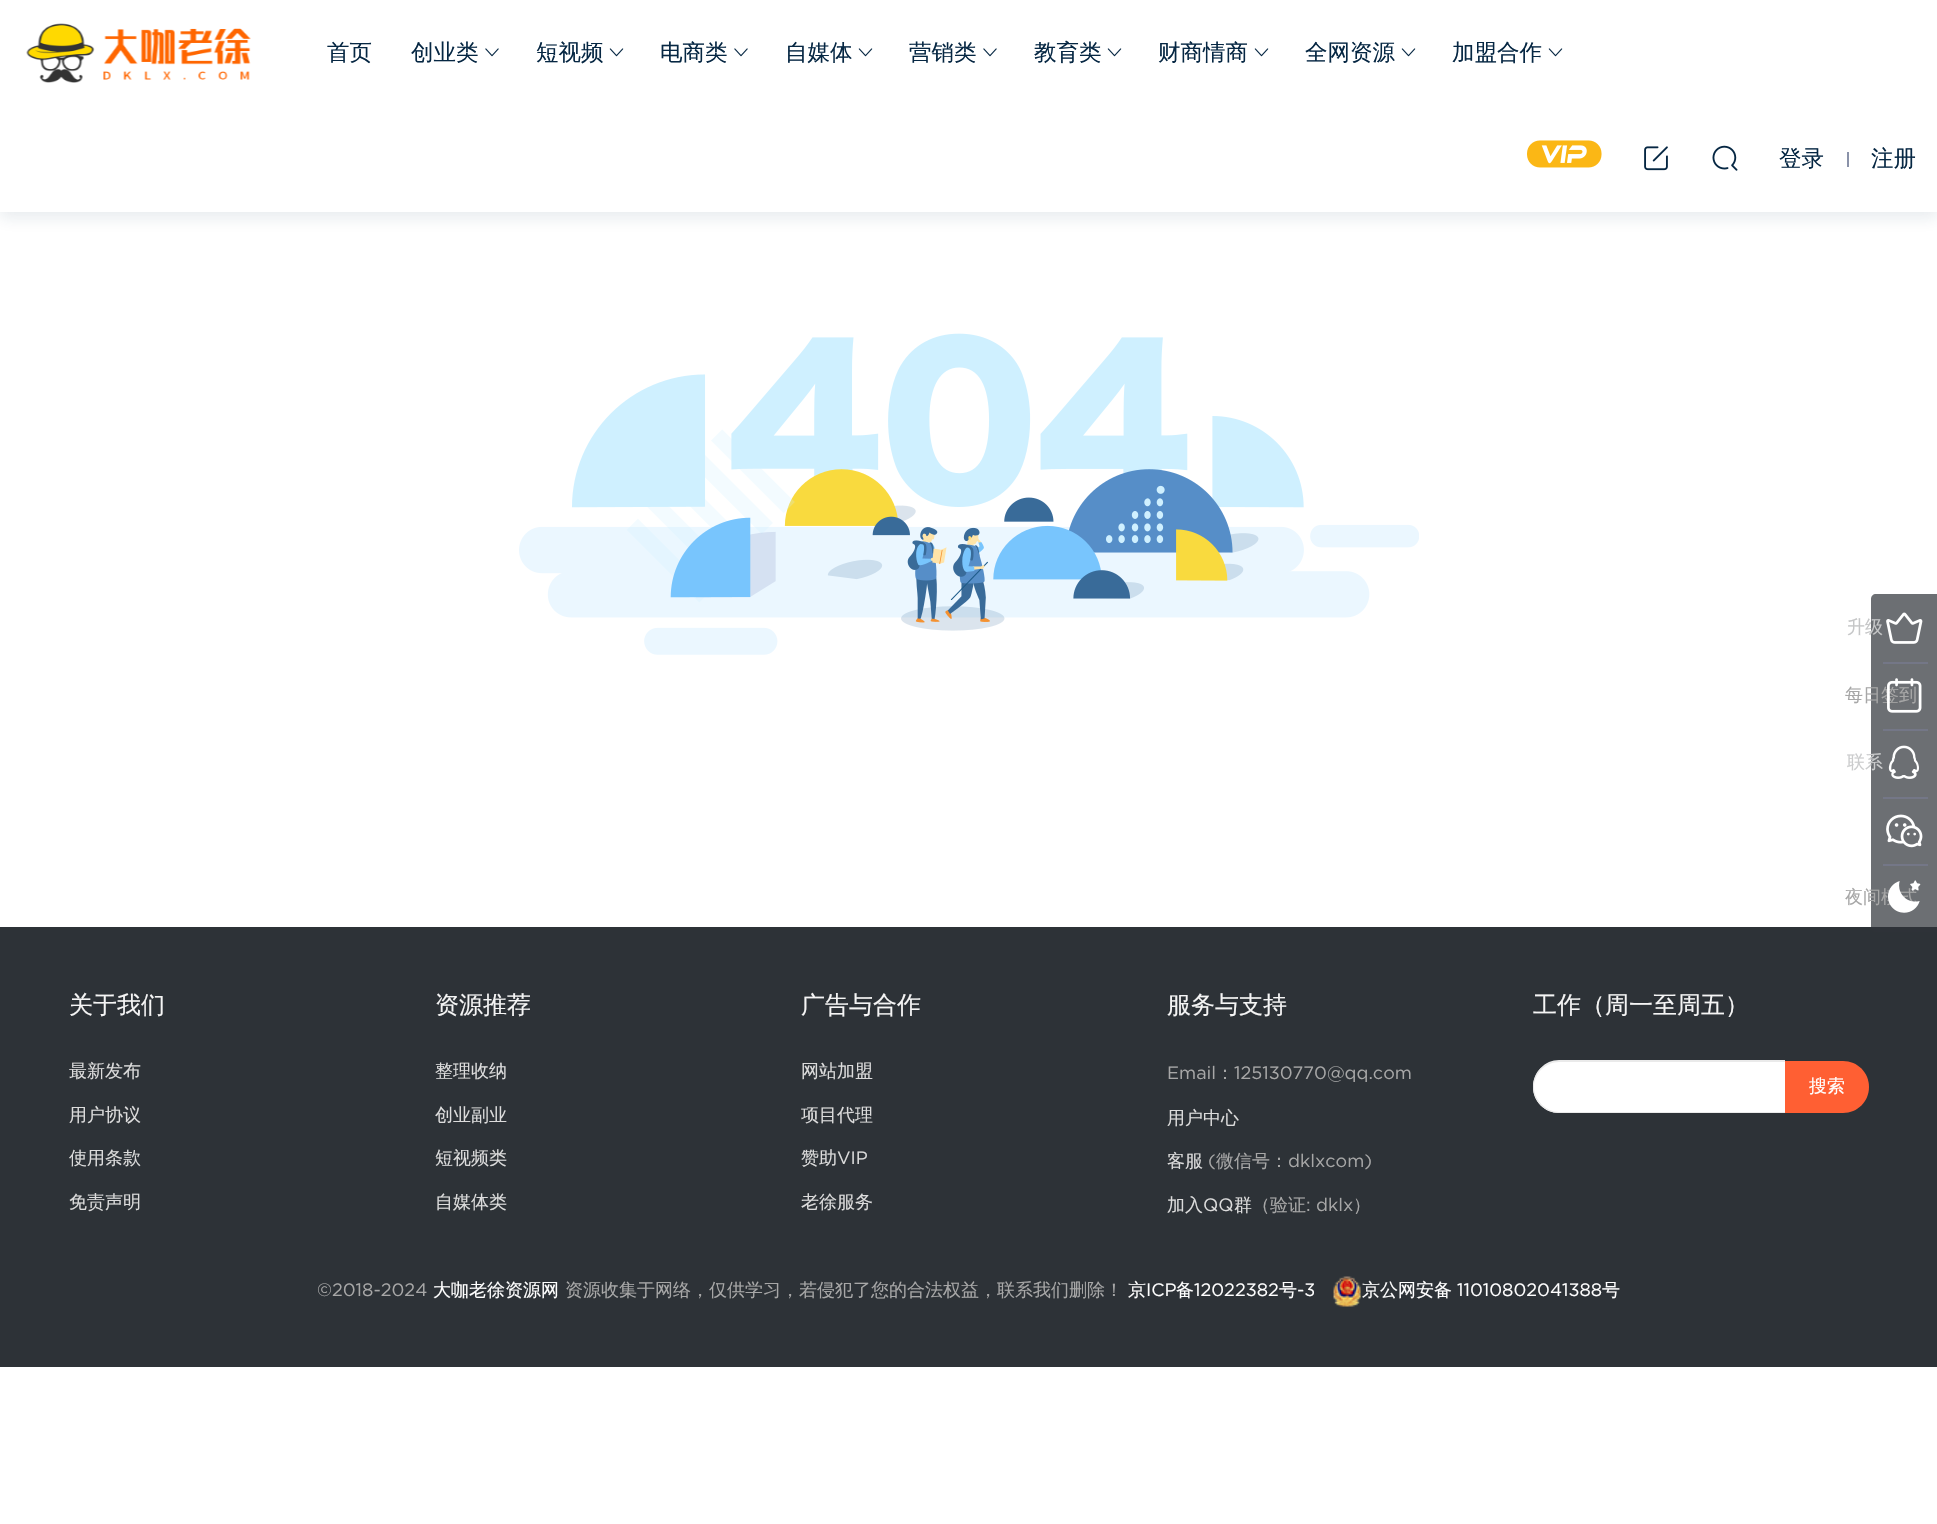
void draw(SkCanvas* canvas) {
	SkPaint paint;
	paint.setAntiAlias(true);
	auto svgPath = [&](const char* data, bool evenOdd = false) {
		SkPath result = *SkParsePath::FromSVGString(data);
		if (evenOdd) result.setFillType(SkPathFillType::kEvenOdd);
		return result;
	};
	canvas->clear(0xffffffff);
	paint.setColor(0x1a113a5d);
	paint.setMaskFilter(SkMaskFilter::MakeBlur(kNormal_SkBlurStyle, 7.5));
	canvas->drawRect(SkRect::MakeXYWH(0, 6, 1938, 212), paint);
	paint.setMaskFilter(nullptr);
	paint.setColor(0xffffffff);
	canvas->drawRect(SkRect::MakeXYWH(0, 0, 1937, 212), paint);
	canvas->drawImageRect(SkImages::DeferredFromEncodedData(SkData::MakeFromFileName("img1.png")), SkRect::MakeXYWH(26, 23, 225, 60), SkSamplingOptions());
	SkFont f1(fontMgr->matchFamilyStyle("WenQuanYi Zen Hei", SkFontStyle(500, SkFontStyle::kNormal_Width, SkFontStyle::kUpright_Slant)), 22.5);
	f1.setSubpixel(true);
	paint.setColor(0xff062743);
	canvas->drawString("首页", 327, 60, f1, paint);
	canvas->drawString("创业类", 411, 60, f1, paint);
	canvas->drawImageRect(SkImages::DeferredFromEncodedData(SkData::MakeFromFileName("img2.png")), SkRect::MakeXYWH(485, 48, 14, 9), SkSamplingOptions());
	canvas->drawString("短视频", 536, 60, f1, paint);
	canvas->drawImageRect(SkImages::DeferredFromEncodedData(SkData::MakeFromFileName("img3.png")), SkRect::MakeXYWH(609, 48, 15, 9), SkSamplingOptions());
	canvas->drawString("电商类", 660, 60, f1, paint);
	canvas->drawImageRect(SkImages::DeferredFromEncodedData(SkData::MakeFromFileName("img2.png")), SkRect::MakeXYWH(734, 48, 14, 9), SkSamplingOptions());
	canvas->drawString("自媒体", 785, 60, f1, paint);
	canvas->drawImageRect(SkImages::DeferredFromEncodedData(SkData::MakeFromFileName("img3.png")), SkRect::MakeXYWH(858, 48, 15, 9), SkSamplingOptions());
	canvas->drawString("营销类", 909, 60, f1, paint);
	canvas->drawImageRect(SkImages::DeferredFromEncodedData(SkData::MakeFromFileName("img2.png")), SkRect::MakeXYWH(983, 48, 14, 9), SkSamplingOptions());
	canvas->drawString("教育类", 1034, 60, f1, paint);
	canvas->drawImageRect(SkImages::DeferredFromEncodedData(SkData::MakeFromFileName("img3.png")), SkRect::MakeXYWH(1107, 48, 15, 9), SkSamplingOptions());
	canvas->drawString("财商情商", 1158, 60, f1, paint);
	canvas->drawImageRect(SkImages::DeferredFromEncodedData(SkData::MakeFromFileName("img3.png")), SkRect::MakeXYWH(1254, 48, 15, 9), SkSamplingOptions());
	canvas->drawString("全网资源", 1305, 60, f1, paint);
	canvas->drawImageRect(SkImages::DeferredFromEncodedData(SkData::MakeFromFileName("img3.png")), SkRect::MakeXYWH(1401, 48, 15, 9), SkSamplingOptions());
	canvas->drawString("加盟合作", 1452, 60, f1, paint);
	canvas->drawImageRect(SkImages::DeferredFromEncodedData(SkData::MakeFromFileName("img3.png")), SkRect::MakeXYWH(1548, 48, 15, 9), SkSamplingOptions());
	canvas->drawImageRect(SkImages::DeferredFromEncodedData(SkData::MakeFromFileName("img4.png")), SkRect::MakeXYWH(1527, 140, 75, 28), SkSamplingOptions());
	canvas->drawImageRect(SkImages::DeferredFromEncodedData(SkData::MakeFromFileName("img5.png")), SkRect::MakeXYWH(1644, 146, 24, 25), SkSamplingOptions());
	canvas->drawImageRect(SkImages::DeferredFromEncodedData(SkData::MakeFromFileName("img6.png")), SkRect::MakeXYWH(1712, 145, 26, 26), SkSamplingOptions());
	canvas->drawString("登录", 1779, 166, f1, paint);
	paint.setColor(0xff8a92a9);
	canvas->drawRect(SkRect::MakeXYWH(1847, 152, 2, 15), paint);
	paint.setColor(0xff062743);
	canvas->drawString("注册", 1871, 166, f1, paint);
	canvas->drawImageRect(SkImages::DeferredFromEncodedData(SkData::MakeFromFileName("img7.png")), SkRect::MakeXYWH(519, 333, 900, 322), SkSamplingOptions());
	paint.setColor(0xff2d3237);
	canvas->drawRect(SkRect::MakeXYWH(0, 927, 1937, 440), paint);
	paint.setColor(0xb32d3237);
	canvas->drawPath(svgPath("M1876 594H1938V932H1876C1873 932 1871 930 1871 927V599C1871 596 1873 594 1876 594Z"), paint);
	SkFont f2(fontMgr->matchFamilyStyle("WenQuanYi Zen Hei", SkFontStyle(500, SkFontStyle::kNormal_Width, SkFontStyle::kUpright_Slant)), 18);
	f2.setSubpixel(true);
	paint.setColor(0xffc5c6c7);
	canvas->drawString("升级", 1847, 633, f2, paint);
	canvas->drawImageRect(SkImages::DeferredFromEncodedData(SkData::MakeFromFileName("img8.png")), SkRect::MakeXYWH(1886, 612, 37, 32), SkSamplingOptions());
	paint.setColor(0xff747787);
	canvas->drawRect(SkRect::MakeXYWH(1883, 662, 45, 2), paint);
	paint.setColor(0xffa7a7a7);
	canvas->drawString("每日签到", 1845, 701, f2, paint);
	canvas->drawImageRect(SkImages::DeferredFromEncodedData(SkData::MakeFromFileName("img9.png")), SkRect::MakeXYWH(1887, 678, 35, 35), SkSamplingOptions());
	paint.setColor(0xff747787);
	canvas->drawRect(SkRect::MakeXYWH(1883, 729, 45, 2), paint);
	paint.setColor(0xffcbcccd);
	canvas->drawString("联系", 1847, 768, f2, paint);
	canvas->drawImageRect(SkImages::DeferredFromEncodedData(SkData::MakeFromFileName("img10.png")), SkRect::MakeXYWH(1888, 745, 31, 34), SkSamplingOptions());
	paint.setColor(0xff747787);
	canvas->drawRect(SkRect::MakeXYWH(1883, 797, 45, 2), paint);
	canvas->drawImageRect(SkImages::DeferredFromEncodedData(SkData::MakeFromFileName("img11.png")), SkRect::MakeXYWH(1886, 814, 37, 34), SkSamplingOptions());
	canvas->drawRect(SkRect::MakeXYWH(1883, 864, 45, 2), paint);
	paint.setColor(0xffa7a7a7);
	canvas->drawString("夜间模式", 1845, 903, f2, paint);
	canvas->drawImageRect(SkImages::DeferredFromEncodedData(SkData::MakeFromFileName("img12.png")), SkRect::MakeXYWH(1887, 880, 34, 33), SkSamplingOptions());
	SkFont f3(fontMgr->matchFamilyStyle("WenQuanYi Zen Hei", SkFontStyle(500, SkFontStyle::kNormal_Width, SkFontStyle::kUpright_Slant)), 24);
	f3.setSubpixel(true);
	paint.setColor(0xfff5f5f5);
	canvas->drawString("关于我们", 69, 1013, f3, paint);
	paint.setColor(0xffdcdcdc);
	canvas->drawString("最新发布", 69, 1077, f2, paint);
	canvas->drawString("用户协议", 69, 1121, f2, paint);
	canvas->drawString("使用条款", 69, 1164, f2, paint);
	canvas->drawString("免责声明", 69, 1208, f2, paint);
	paint.setColor(0xfff5f5f5);
	canvas->drawString("资源推荐", 435, 1013, f3, paint);
	paint.setColor(0xffdcdcdc);
	canvas->drawString("整理收纳", 435, 1077, f2, paint);
	canvas->drawString("创业副业", 435, 1121, f2, paint);
	canvas->drawString("短视频类", 435, 1164, f2, paint);
	canvas->drawString("自媒体类", 435, 1208, f2, paint);
	paint.setColor(0xfff5f5f5);
	canvas->drawString("广告与合作", 801, 1013, f3, paint);
	paint.setColor(0xffdcdcdc);
	canvas->drawString("网站加盟", 801, 1077, f2, paint);
	canvas->drawString("项目代理", 801, 1121, f2, paint);
	canvas->drawString("赞助", 801, 1164, f2, paint);
	SkFont f4(fontMgr->matchFamilyStyle("Gotham", SkFontStyle::Normal()), 18);
	f4.setSubpixel(true);
	canvas->drawString("VIP", 837, 1164, f4, paint);
	canvas->drawString("老徐服务", 801, 1208, f2, paint);
	paint.setColor(0xfff5f5f5);
	canvas->drawString("服务与支持", 1167, 1013, f3, paint);
	paint.setColor(0xffa7a7a7);
	canvas->drawString("Email", 1167, 1079, f4, paint);
	canvas->drawString("：", 1216, 1079, f2, paint);
	canvas->drawString("125130770@qq.com", 1234, 1079, f4, paint);
	paint.setColor(0xffdcdcdc);
	canvas->drawString("用户中心", 1167, 1124, f2, paint);
	canvas->drawString("客服", 1167, 1167, f2, paint);
	paint.setColor(0xffa7a7a7);
	canvas->drawString("(", 1208, 1167, f4, paint);
	canvas->drawString("微信号：", 1216, 1167, f2, paint);
	canvas->drawString("dklxcom)", 1288, 1167, f4, paint);
	paint.setColor(0xffdcdcdc);
	canvas->drawString("加入", 1167, 1211, f2, paint);
	canvas->drawString("QQ", 1203, 1211, f4, paint);
	canvas->drawString("群", 1234, 1211, f2, paint);
	paint.setColor(0xffa7a7a7);
	canvas->drawString("（验证", 1252, 1211, f2, paint);
	canvas->drawString(": dklx", 1306, 1211, f4, paint);
	canvas->drawString("）", 1353, 1211, f2, paint);
	paint.setColor(0xfff5f5f5);
	canvas->drawString("工作（周一至周五）", 1533, 1013, f3, paint);
	paint.setColor(0xffffffff);
	canvas->drawPath(svgPath("M1559 1061H1785V1113H1559C1544.5 1113 1533 1101.5 1533 1087C1533 1072.5 1544.5 1061 1559 1061Z"), paint);
	paint.setColor(0xffeaeaea);
	canvas->drawPath(svgPath("M1559 1060H1785V1113H1559C1545 1113 1533 1101 1533 1087C1533 1072 1545 1060 1559 1060ZM1559 1062H1785V1112H1559C1546 1112 1534 1100 1534 1087C1534 1073 1546 1062 1559 1062Z", true), paint);
	paint.setColor(0xffff5f33);
	canvas->drawPath(svgPath("M1785 1061H1843C1857.5 1061 1869 1072.5 1869 1087C1869 1101.5 1857.5 1113 1843 1113H1785Z"), paint);
	paint.setColor(0xffffffff);
	canvas->drawString("搜索", 1809, 1092, f2, paint);
	paint.setColor(0xffa7a7a7);
	canvas->drawString("©2018-2024", 317, 1296, f4, paint);
	paint.setColor(0xffffffff);
	canvas->drawString("大咖老徐资源网", 433, 1296, f2, paint);
	paint.setColor(0xffa7a7a7);
	canvas->drawString("资源收集于网络，仅供学习，若侵犯了您的合法权益，联系我们删除！", 565, 1296, f2, paint);
	paint.setColor(0xffffffff);
	canvas->drawString("京", 1128, 1296, f2, paint);
	canvas->drawString("ICP", 1146, 1296, f4, paint);
	canvas->drawString("备", 1176, 1296, f2, paint);
	canvas->drawString("12022382", 1194, 1296, f4, paint);
	canvas->drawString("号", 1279, 1296, f2, paint);
	canvas->drawString("-3", 1297, 1296, f4, paint);
	canvas->drawImageRect(SkImages::DeferredFromEncodedData(SkData::MakeFromFileName("img13.png")), SkRect::MakeXYWH(1333, 1276, 28, 31), SkSamplingOptions());
	canvas->drawString("京公网安备", 1362, 1296, f2, paint);
	canvas->drawString("11010802041388", 1457, 1296, f4, paint);
	canvas->drawString("号", 1602, 1296, f2, paint);
}
